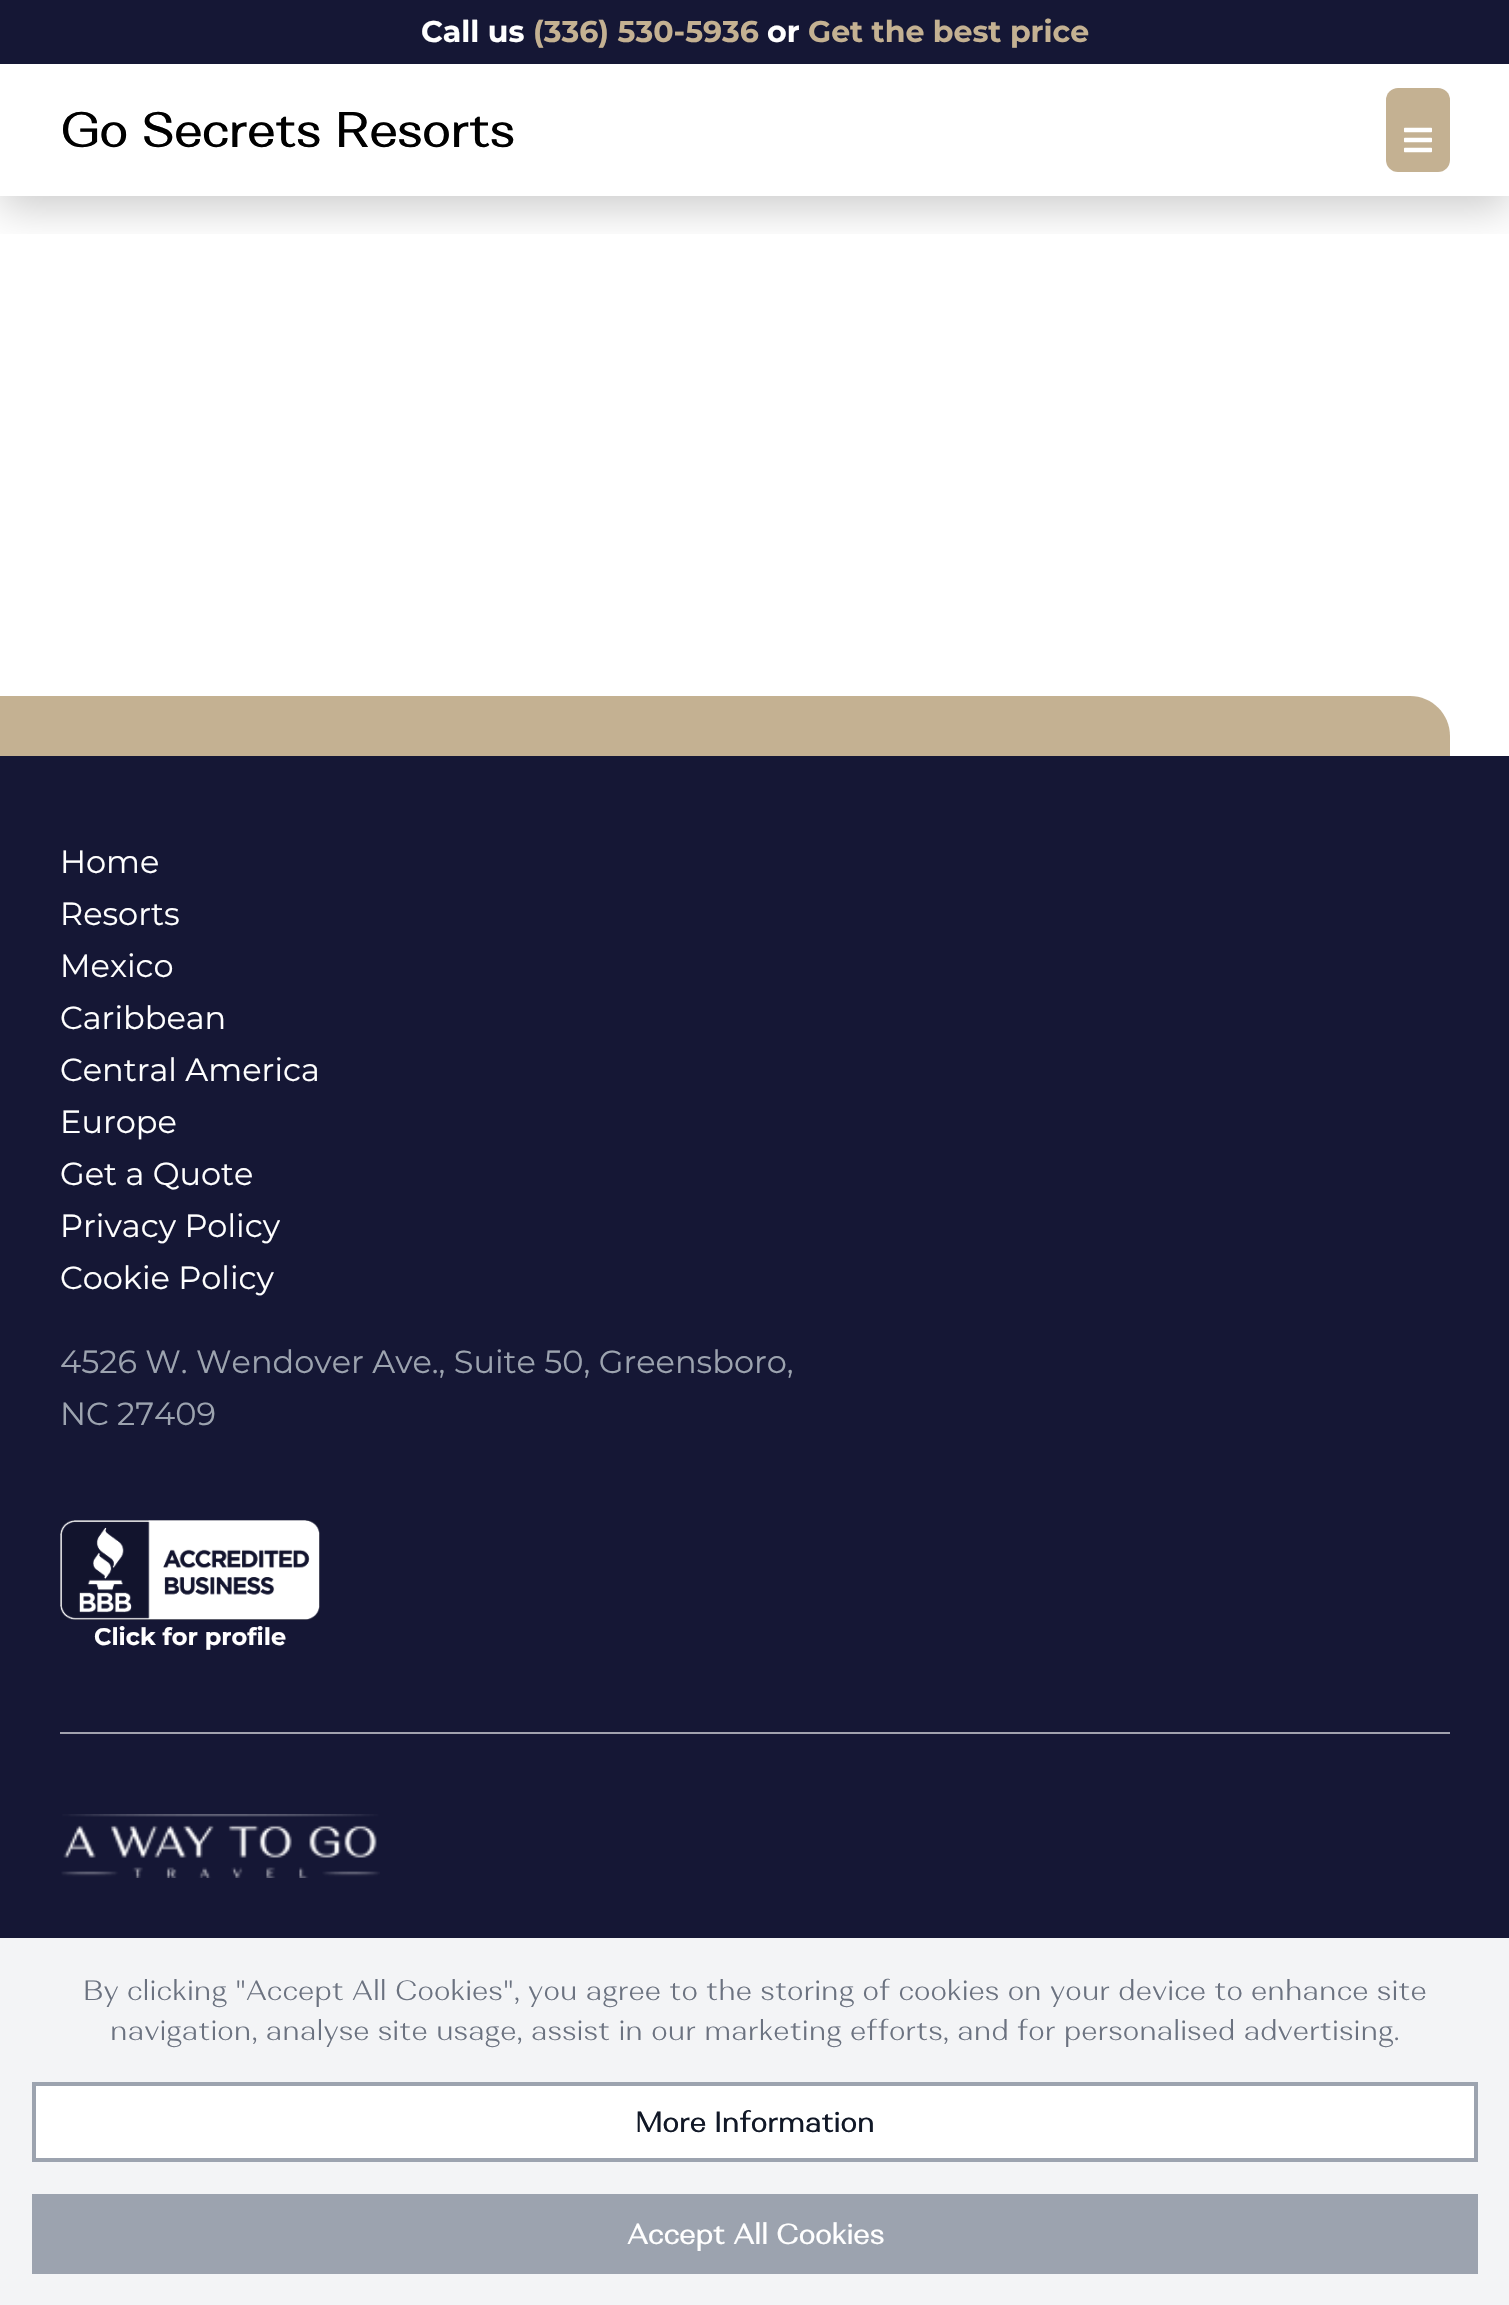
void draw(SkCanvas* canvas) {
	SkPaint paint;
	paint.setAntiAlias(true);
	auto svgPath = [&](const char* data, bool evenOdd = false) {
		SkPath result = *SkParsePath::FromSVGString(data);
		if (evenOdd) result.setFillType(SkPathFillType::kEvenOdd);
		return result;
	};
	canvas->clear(0xffffffff);
	canvas->save();
	canvas->clipRect(SkRect::MakeXYWH(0, 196, 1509, 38));
	paint.setColor(0x33000000);
	paint.setMaskFilter(SkMaskFilter::MakeBlur(kNormal_SkBlurStyle, 20));
	canvas->drawRect(SkRect::MakeXYWH(0, 12, 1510, 196), paint);
	paint.setMaskFilter(nullptr);
	canvas->restore();
	paint.setColor(0xff151735);
	canvas->drawRect(SkRect::MakeXYWH(0, 0, 1509, 64), paint);
	SkFont f1(fontMgr->matchFamilyStyle("Montserrat", SkFontStyle::Bold()), 30);
	f1.setSubpixel(true);
	paint.setColor(0xffffffff);
	canvas->drawString("Call us", 421, 42, f1, paint);
	paint.setColor(0xffc4b192);
	canvas->drawString("(336) 530-5936", 533, 42, f1, paint);
	paint.setColor(0xffffffff);
	canvas->drawString("or", 767, 42, f1, paint);
	paint.setColor(0xffc4b192);
	canvas->drawString("Get the best price", 808, 42, f1, paint);
	SkFont f2(fontMgr->matchFamilyStyle("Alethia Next", SkFontStyle::Bold()), 48);
	f2.setSubpixel(true);
	paint.setColor(0xff000000);
	canvas->drawString("Go Secrets Resorts", 60, 147, f2, paint);
	paint.setColor(0xffc4b192);
	canvas->drawRoundRect(SkRect::MakeXYWH(1386, 88, 64, 84), 12, 12, paint);
	canvas->drawImageRect(SkImages::DeferredFromEncodedData(SkData::MakeFromFileName("img1.png")), SkRect::MakeXYWH(1404, 127, 28, 26), SkSamplingOptions());
	canvas->drawRect(SkRect::MakeXYWH(0, 696, 60, 60), paint);
	canvas->drawPath(svgPath("M60 696H1410C1432 696 1450 714 1450 736V756H60Z"), paint);
	paint.setColor(0xff151735);
	canvas->drawRect(SkRect::MakeXYWH(0, 756, 1509, 1182), paint);
	SkFont f3(fontMgr->matchFamilyStyle("Montserrat", SkFontStyle::Normal()), 32);
	f3.setSubpixel(true);
	paint.setColor(0xffffffff);
	canvas->drawString("Home", 60, 873, f3, paint);
	canvas->drawString("Resorts", 60, 925, f3, paint);
	canvas->drawString("Mexico", 60, 977, f3, paint);
	canvas->drawString("Caribbean", 60, 1029, f3, paint);
	canvas->drawString("Central America", 60, 1081, f3, paint);
	canvas->drawString("Europe", 60, 1133, f3, paint);
	canvas->drawString("Get a Quote", 60, 1185, f3, paint);
	canvas->drawString("Privacy Policy", 60, 1237, f3, paint);
	canvas->drawString("Cookie Policy", 60, 1289, f3, paint);
	paint.setColor(0xff9ca3af);
	canvas->drawString("4526 W. Wendover Ave., Suite 50, Greensboro,", 60, 1373, f3, paint);
	canvas->drawString("NC 27409", 60, 1425, f3, paint);
	canvas->drawImageRect(SkImages::DeferredFromEncodedData(SkData::MakeFromFileName("img2.png")), SkRect::MakeXYWH(60, 1520, 260, 100), SkSamplingOptions());
	SkFont f4(fontMgr->matchFamilyStyle("Montserrat", SkFontStyle::Bold()), 24);
	f4.setSubpixel(true);
	paint.setColor(0xffffffff);
	canvas->drawString("Click for profile", 94, 1645, f4, paint);
	paint.setColor(0xffa1a2ae);
	canvas->drawRect(SkRect::MakeXYWH(60, 1732, 1390, 2), paint);
	canvas->drawImageRect(SkImages::DeferredFromEncodedData(SkData::MakeFromFileName("img3.png")), SkRect::MakeXYWH(61, 1814, 319, 64), SkSamplingOptions());
	paint.setColor(0xfff3f4f6);
	canvas->drawRect(SkRect::MakeXYWH(0, 1938, 1509, 367), paint);
	SkFont f5(fontMgr->matchFamilyStyle("Alethia Next", SkFontStyle(300, SkFontStyle::kNormal_Width, SkFontStyle::kUpright_Slant)), 28);
	f5.setSubpixel(true);
	paint.setColor(0xff6b7280);
	canvas->drawString("By clicking \"Accept All Cookies\", you agree to the storing of cookies on your device to enhance site", 83, 2000, f5, paint);
	canvas->drawString("navigation, analyse site usage, assist in our marketing efforts, and for personalised advertising.", 110, 2040, f5, paint);
	paint.setColor(0xffffffff);
	canvas->drawRect(SkRect::MakeXYWH(34, 2084, 1442, 76), paint);
	paint.setStroke(true);
	paint.setStrokeWidth(4);
	paint.setColor(0xff9ca3af);
	canvas->drawRect(SkRect::MakeXYWH(34, 2084, 1442, 76), paint);
	SkFont f6(fontMgr->matchFamilyStyle("Alethia Next", SkFontStyle::Bold()), 28);
	f6.setSubpixel(true);
	paint.setStroke(false);
	paint.setColor(0xff111827);
	canvas->drawString("More Information", 635, 2132, f6, paint);
	paint.setColor(0xff9ca3af);
	canvas->drawRect(SkRect::MakeXYWH(32, 2194, 1446, 80), paint);
	paint.setColor(0xffffffff);
	canvas->drawString("Accept All Cookies", 627, 2244, f6, paint);
}
